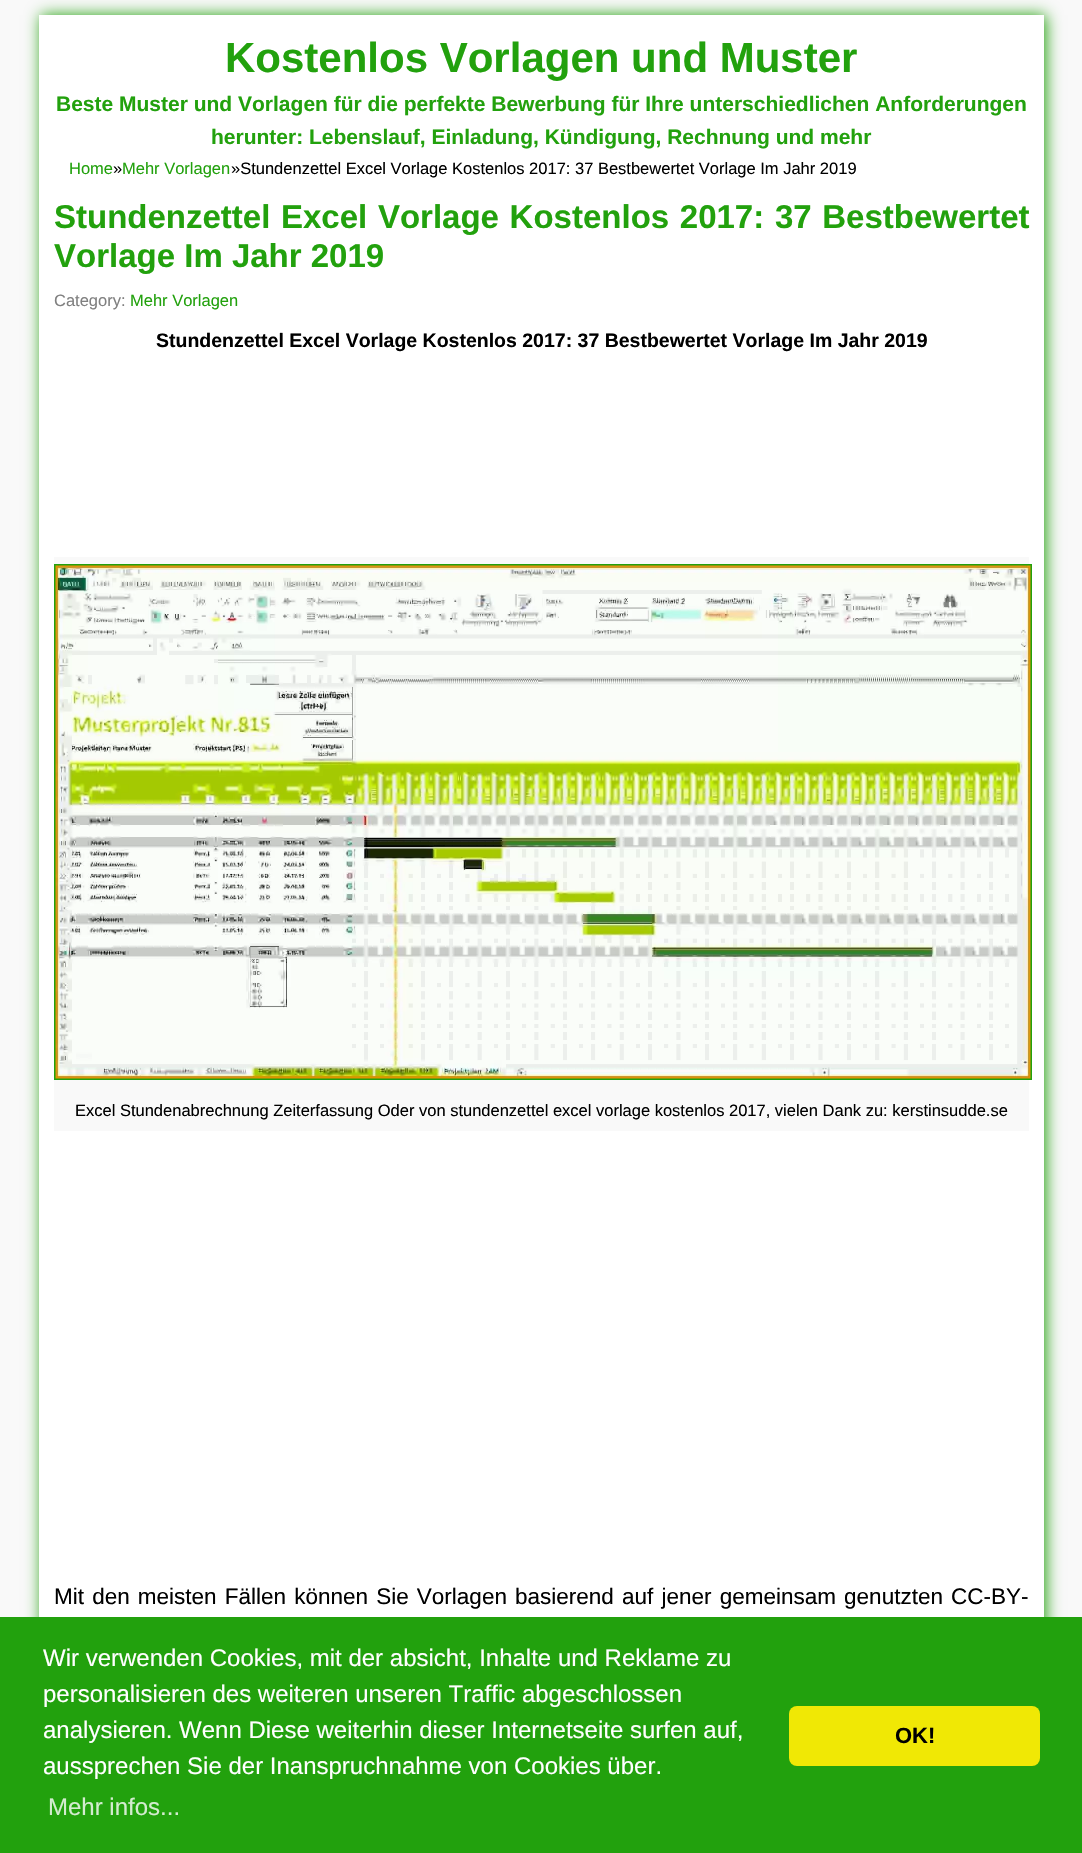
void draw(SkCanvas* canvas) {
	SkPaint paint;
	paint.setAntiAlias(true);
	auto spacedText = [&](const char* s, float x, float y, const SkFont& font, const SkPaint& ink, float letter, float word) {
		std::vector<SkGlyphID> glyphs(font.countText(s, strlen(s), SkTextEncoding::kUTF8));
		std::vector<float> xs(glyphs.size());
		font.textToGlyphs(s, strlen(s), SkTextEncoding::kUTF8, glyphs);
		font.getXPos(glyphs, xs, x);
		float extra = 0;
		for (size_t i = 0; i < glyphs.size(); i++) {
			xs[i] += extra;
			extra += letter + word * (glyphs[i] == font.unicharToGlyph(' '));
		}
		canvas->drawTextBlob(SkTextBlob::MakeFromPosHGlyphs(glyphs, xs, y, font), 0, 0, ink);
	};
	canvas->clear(0xfff9f9f9);
	paint.setColor(0xff22a10d);
	paint.setMaskFilter(SkMaskFilter::MakeBlur(kNormal_SkBlurStyle, 7.5));
	canvas->drawRect(SkRect::MakeXYWH(41, 15, 1005, 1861), paint);
	paint.setMaskFilter(nullptr);
	paint.setColor(0xffffffff);
	canvas->drawRect(SkRect::MakeXYWH(39, 15, 1005, 1602), paint);
	SkFont f1(fontMgr->matchFamilyStyle("Liberation Sans", SkFontStyle::Bold()), 42);
	f1.setSubpixel(true);
	paint.setColor(0xff22a10d);
	canvas->drawString("Kostenlos Vorlagen und Muster", 225, 72, f1, paint);
	SkFont f2(fontMgr->matchFamilyStyle("Liberation Sans", SkFontStyle::Bold()), 21);
	f2.setSubpixel(true);
	canvas->drawString("Beste Muster und Vorlagen für die perfekte Bewerbung für Ihre unterschiedlichen Anforderungen", 56, 111, f2, paint);
	canvas->drawString("herunter: Lebenslauf, Einladung, Kündigung, Rechnung und mehr", 211, 144, f2, paint);
	SkFont f3(fontMgr->matchFamilyStyle("Liberation Sans", SkFontStyle::Normal()), 16.5);
	f3.setSubpixel(true);
	canvas->drawString("Home", 69, 174, f3, paint);
	paint.setColor(0xff000000);
	canvas->drawString("»", 113, 174, f3, paint);
	paint.setColor(0xff22a10d);
	canvas->drawString("Mehr Vorlagen", 122, 174, f3, paint);
	paint.setColor(0xff000000);
	canvas->drawString("»Stundenzettel Excel Vorlage Kostenlos 2017: 37 Bestbewertet Vorlage Im Jahr 2019", 231, 174, f3, paint);
	SkFont f4(fontMgr->matchFamilyStyle("Liberation Sans", SkFontStyle::Bold()), 33);
	f4.setSubpixel(true);
	paint.setColor(0xff22a10d);
	spacedText("Stundenzettel Excel Vorlage Kostenlos 2017: 37 Bestbewertet", 54, 228, f4, paint, 0, 1.5);
	canvas->drawString("Vorlage Im Jahr 2019", 54, 267, f4, paint);
	paint.setColor(0xff808080);
	canvas->drawString("Category:", 54, 306, f3, paint);
	paint.setColor(0xff22a10d);
	canvas->drawString("Mehr Vorlagen", 130, 306, f3, paint);
	SkFont f5(fontMgr->matchFamilyStyle("Liberation Sans", SkFontStyle::Bold()), 19.5);
	f5.setSubpixel(true);
	paint.setColor(0xff000000);
	canvas->drawString("Stundenzettel Excel Vorlage Kostenlos 2017: 37 Bestbewertet Vorlage Im Jahr 2019", 156, 347, f5, paint);
	paint.setColor(0xfff9f9f9);
	canvas->drawRect(SkRect::MakeXYWH(54, 557, 975, 574), paint);
	paint.setStroke(true);
	paint.setStrokeWidth(2);
	paint.setColor(0xff22a10d);
	canvas->drawRect(SkRect::MakeXYWH(55, 565, 976, 514), paint);
	canvas->drawImageRect(SkImages::DeferredFromEncodedData(SkData::MakeFromFileName("img1.png")), SkRect::MakeXYWH(55, 565, 976, 514), SkSamplingOptions());
	paint.setStroke(false);
	paint.setColor(0xff000000);
	canvas->drawString("Excel Stundenabrechnung Zeiterfassung Oder von stundenzettel excel vorlage kostenlos 2017, vielen Dank zu: kerstinsudde.se", 75, 1116, f3, paint);
	SkFont f6(fontMgr->matchFamilyStyle("Liberation Sans", SkFontStyle::Normal()), 22.5);
	f6.setSubpixel(true);
	spacedText("Mit den meisten Fällen können Sie Vorlagen basierend auf jener gemeinsam genutzten CC-BY-", 54, 1604, f6, paint, 0, 1.9);
	paint.setColor(0xff22a10d);
	canvas->drawRect(SkRect::MakeXYWH(0, 1617, 1082, 236), paint);
	SkFont f7(fontMgr->matchFamilyStyle("Liberation Sans", SkFontStyle::Normal()), 24);
	f7.setSubpixel(true);
	paint.setColor(0xffffffff);
	canvas->drawString("Wir verwenden Cookies, mit der absicht, Inhalte und Reklame zu", 43, 1666, f7, paint);
	canvas->drawString("personalisieren des weiteren unseren Traffic abgeschlossen", 43, 1702, f7, paint);
	canvas->drawString("analysieren. Wenn Diese weiterhin dieser Internetseite surfen auf,", 43, 1738, f7, paint);
	canvas->drawString("aussprechen Sie der Inanspruchnahme von Cookies über.", 43, 1774, f7, paint);
	paint.setColor(0xffd3eccf);
	canvas->drawString("Mehr infos...", 48, 1815, f7, paint);
	paint.setColor(0xfff0e805);
	canvas->drawRoundRect(SkRect::MakeXYWH(789, 1706, 251, 60), 8, 8, paint);
	SkFont f8(fontMgr->matchFamilyStyle("Liberation Sans", SkFontStyle::Bold()), 22);
	f8.setSubpixel(true);
	paint.setColor(0xff000000);
	canvas->drawString("OK!", 895, 1743, f8, paint);
}
